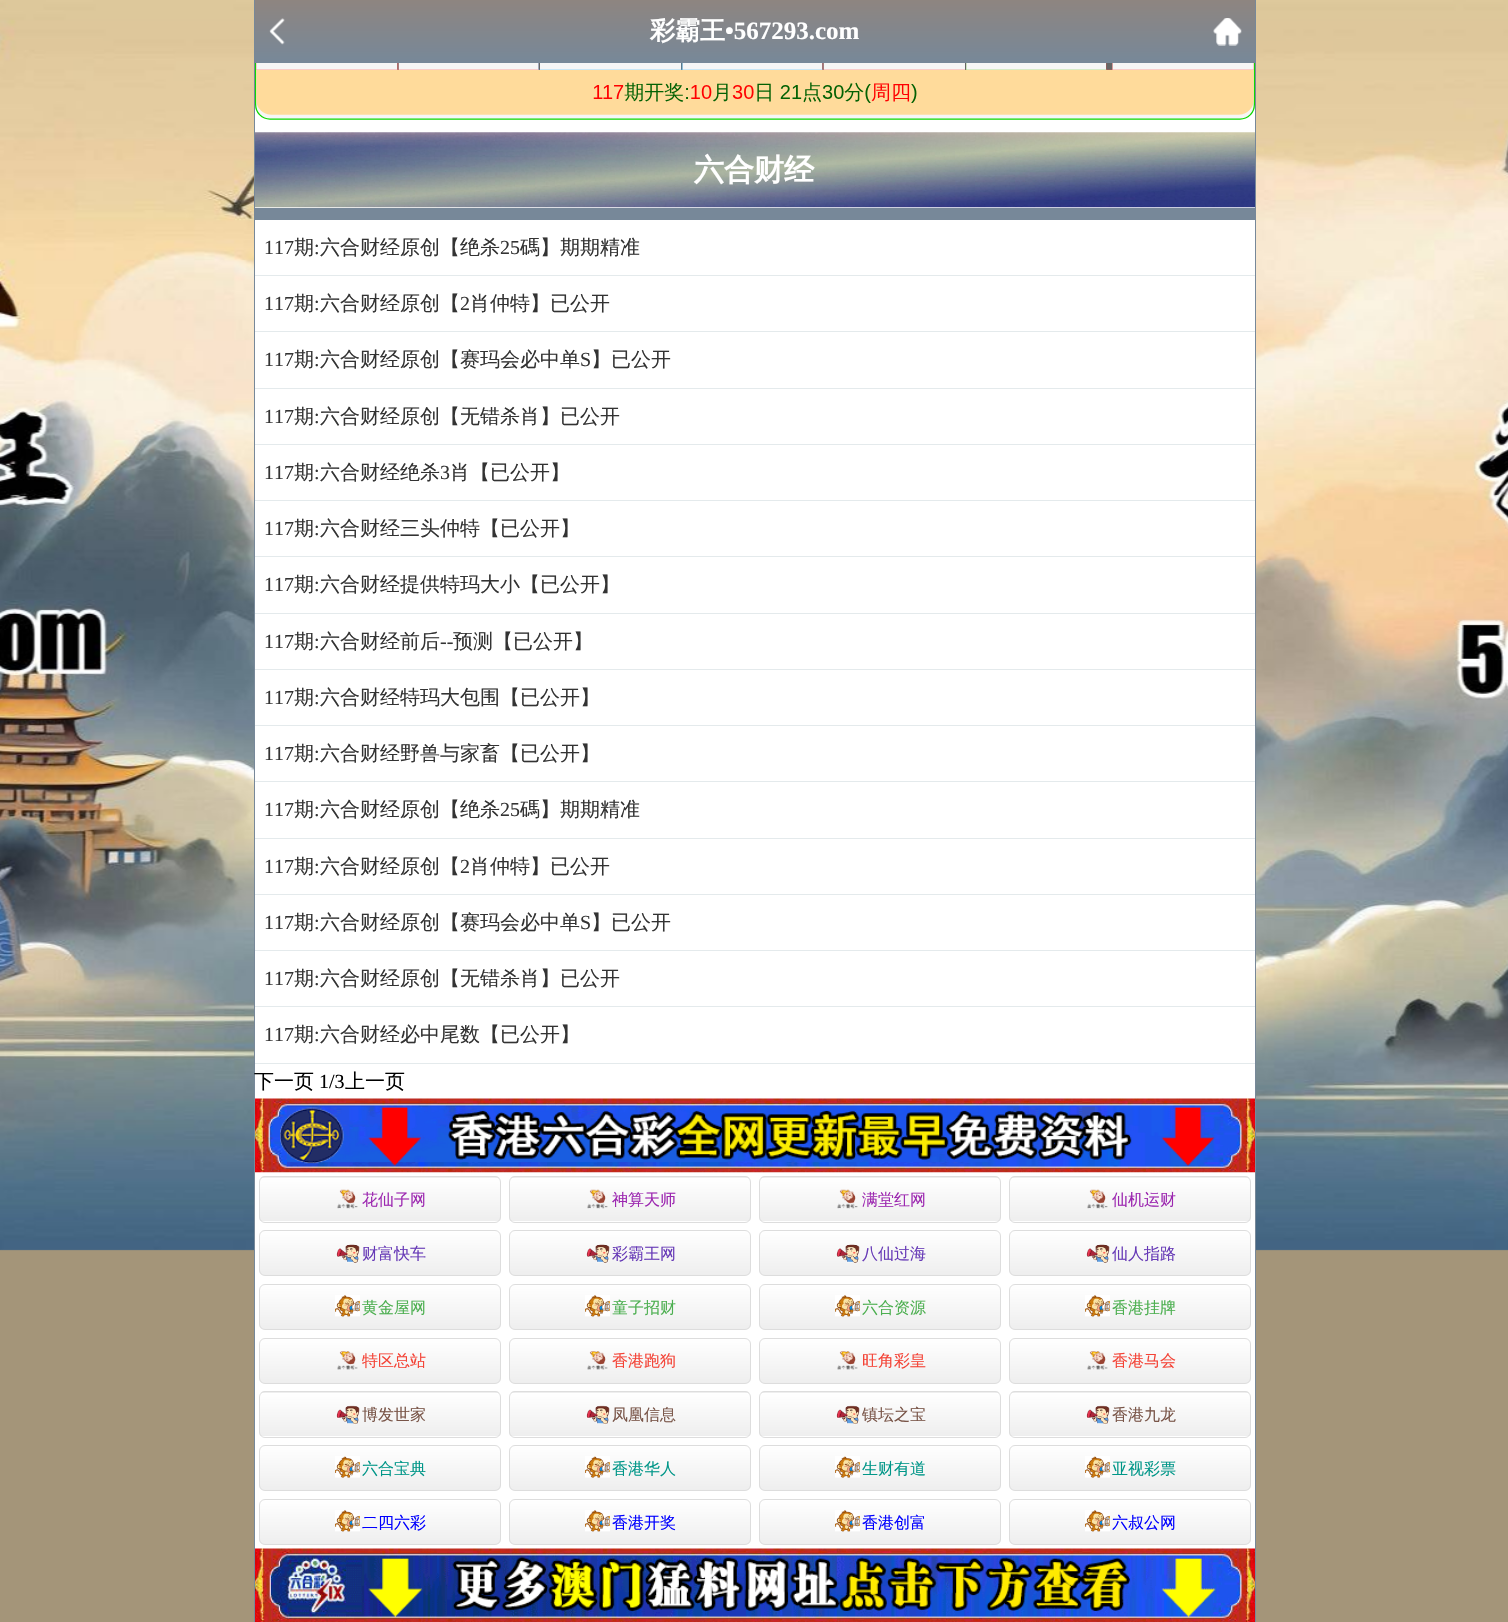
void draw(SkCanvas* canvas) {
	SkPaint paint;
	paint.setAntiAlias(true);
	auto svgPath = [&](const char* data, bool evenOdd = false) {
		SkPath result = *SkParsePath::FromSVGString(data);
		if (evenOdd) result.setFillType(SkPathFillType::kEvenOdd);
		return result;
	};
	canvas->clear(0xffa49579);
	canvas->drawImageRect(SkImages::DeferredFromEncodedData(SkData::MakeFromFileName("img1.png")), SkRect::MakeXYWH(0, 0, 1508, 1251), SkSamplingOptions());
	paint.setColor(0xffffffff);
	canvas->drawRect(SkRect::MakeXYWH(255, 105, 1000, 1444), paint);
	paint.setColor(0xff778899);
	canvas->drawRect(SkRect::MakeXYWH(1255, 0, 1, 1622), paint);
	canvas->drawRect(SkRect::MakeXYWH(254, 0, 1, 1622), paint);
	{
		const SkColor colors[] = {0xff778899, 0xff8e8580};
		const float stops[] = {0, 1};
		const SkPoint ends[] = {{755, 63}, {755, 0}};
		paint.setShader(SkGradientShader::MakeLinear(ends, colors, stops, 2, SkTileMode::kClamp));
		paint.setAlpha(255);
	}
	canvas->drawRect(SkRect::MakeXYWH(255, 0, 1000, 63), paint);
	canvas->drawImageRect(SkImages::DeferredFromEncodedData(SkData::MakeFromFileName("img2.png")), SkRect::MakeXYWH(269, 18, 16, 27), SkSamplingOptions());
	SkFont f1(fontMgr->matchFamilyStyle("WenQuanYi Zen Hei", SkFontStyle::Bold()), 25);
	f1.setSubpixel(true);
	paint.setShader(nullptr);
	paint.setColor(0xffffffff);
	canvas->drawString("彩霸王", 650, 39, f1, paint);
	SkFont f2(fontMgr->matchFamilyStyle("Liberation Serif", SkFontStyle::Bold()), 25);
	f2.setSubpixel(true);
	canvas->drawString("•567293.com", 725, 39, f2, paint);
	canvas->drawImageRect(SkImages::DeferredFromEncodedData(SkData::MakeFromFileName("img3.png")), SkRect::MakeXYWH(1213, 18, 29, 28), SkSamplingOptions());
	canvas->drawImageRect(SkImages::DeferredFromEncodedData(SkData::MakeFromFileName("img4.png")), SkRect::MakeXYWH(255, 63, 1000, 57), SkSamplingOptions());
	canvas->drawImageRect(SkImages::DeferredFromEncodedData(SkData::MakeFromFileName("img5.png")), SkRect::MakeXYWH(255, 132, 1000, 76), SkSamplingOptions());
	paint.setColor(0xff778899);
	canvas->drawRect(SkRect::MakeXYWH(255, 208, 1000, 12), paint);
	SkFont f3(fontMgr->matchFamilyStyle("WenQuanYi Zen Hei", SkFontStyle::Bold()), 30);
	f3.setSubpixel(true);
	paint.setColor(0xffffffff);
	canvas->drawString("六合财经", 694, 180, f3, paint);
	paint.setColor(0xffe4eaec);
	canvas->drawRect(SkRect::MakeXYWH(255, 275, 1000, 1), paint);
	SkFont f4(fontMgr->matchFamilyStyle("Liberation Serif", SkFontStyle::Normal()), 20);
	f4.setSubpixel(true);
	paint.setColor(0xff333333);
	canvas->drawString("117", 264, 254, f4, paint);
	SkFont f5(fontMgr->matchFamilyStyle("WenQuanYi Zen Hei", SkFontStyle(500, SkFontStyle::kNormal_Width, SkFontStyle::kUpright_Slant)), 20);
	f5.setSubpixel(true);
	canvas->drawString("期", 294, 254, f5, paint);
	canvas->drawString(":", 314, 254, f4, paint);
	canvas->drawString("六合财经原创【绝杀", 320, 254, f5, paint);
	canvas->drawString("25", 500, 254, f4, paint);
	canvas->drawString("碼】期期精准", 520, 254, f5, paint);
	paint.setColor(0xffe4eaec);
	canvas->drawRect(SkRect::MakeXYWH(255, 331, 1000, 1), paint);
	paint.setColor(0xff333333);
	canvas->drawString("117", 264, 310, f4, paint);
	canvas->drawString("期", 294, 310, f5, paint);
	canvas->drawString(":", 314, 310, f4, paint);
	canvas->drawString("六合财经原创【", 320, 310, f5, paint);
	canvas->drawString("2", 460, 310, f4, paint);
	canvas->drawString("肖仲特】已公开", 470, 310, f5, paint);
	paint.setColor(0xffe4eaec);
	canvas->drawRect(SkRect::MakeXYWH(255, 388, 1000, 1), paint);
	paint.setColor(0xff333333);
	canvas->drawString("117", 264, 366, f4, paint);
	canvas->drawString("期", 294, 366, f5, paint);
	canvas->drawString(":", 314, 366, f4, paint);
	canvas->drawString("六合财经原创【赛玛会必中单", 320, 366, f5, paint);
	canvas->drawString("S", 580, 366, f4, paint);
	canvas->drawString("】已公开", 591, 366, f5, paint);
	paint.setColor(0xffe4eaec);
	canvas->drawRect(SkRect::MakeXYWH(255, 444, 1000, 1), paint);
	paint.setColor(0xff333333);
	canvas->drawString("117", 264, 423, f4, paint);
	canvas->drawString("期", 294, 423, f5, paint);
	canvas->drawString(":", 314, 423, f4, paint);
	canvas->drawString("六合财经原创【无错杀肖】已公开", 320, 423, f5, paint);
	paint.setColor(0xffe4eaec);
	canvas->drawRect(SkRect::MakeXYWH(255, 500, 1000, 1), paint);
	paint.setColor(0xff333333);
	canvas->drawString("117", 264, 479, f4, paint);
	canvas->drawString("期", 294, 479, f5, paint);
	canvas->drawString(":", 314, 479, f4, paint);
	canvas->drawString("六合财经绝杀", 320, 479, f5, paint);
	canvas->drawString("3", 440, 479, f4, paint);
	canvas->drawString("肖【已公开】", 450, 479, f5, paint);
	paint.setColor(0xffe4eaec);
	canvas->drawRect(SkRect::MakeXYWH(255, 556, 1000, 1), paint);
	paint.setColor(0xff333333);
	canvas->drawString("117", 264, 535, f4, paint);
	canvas->drawString("期", 294, 535, f5, paint);
	canvas->drawString(":", 314, 535, f4, paint);
	canvas->drawString("六合财经三头仲特【已公开】", 320, 535, f5, paint);
	paint.setColor(0xffe4eaec);
	canvas->drawRect(SkRect::MakeXYWH(255, 613, 1000, 1), paint);
	paint.setColor(0xff333333);
	canvas->drawString("117", 264, 591, f4, paint);
	canvas->drawString("期", 294, 591, f5, paint);
	canvas->drawString(":", 314, 591, f4, paint);
	canvas->drawString("六合财经提供特玛大小【已公开】", 320, 591, f5, paint);
	paint.setColor(0xffe4eaec);
	canvas->drawRect(SkRect::MakeXYWH(255, 669, 1000, 1), paint);
	paint.setColor(0xff333333);
	canvas->drawString("117", 264, 648, f4, paint);
	canvas->drawString("期", 294, 648, f5, paint);
	canvas->drawString(":", 314, 648, f4, paint);
	canvas->drawString("六合财经前后", 320, 648, f5, paint);
	canvas->drawString("--", 440, 648, f4, paint);
	canvas->drawString("预测【已公开】", 453, 648, f5, paint);
	paint.setColor(0xffe4eaec);
	canvas->drawRect(SkRect::MakeXYWH(255, 725, 1000, 1), paint);
	paint.setColor(0xff333333);
	canvas->drawString("117", 264, 704, f4, paint);
	canvas->drawString("期", 294, 704, f5, paint);
	canvas->drawString(":", 314, 704, f4, paint);
	canvas->drawString("六合财经特玛大包围【已公开】", 320, 704, f5, paint);
	paint.setColor(0xffe4eaec);
	canvas->drawRect(SkRect::MakeXYWH(255, 781, 1000, 1), paint);
	paint.setColor(0xff333333);
	canvas->drawString("117", 264, 760, f4, paint);
	canvas->drawString("期", 294, 760, f5, paint);
	canvas->drawString(":", 314, 760, f4, paint);
	canvas->drawString("六合财经野兽与家畜【已公开】", 320, 760, f5, paint);
	paint.setColor(0xffe4eaec);
	canvas->drawRect(SkRect::MakeXYWH(255, 838, 1000, 1), paint);
	paint.setColor(0xff333333);
	canvas->drawString("117", 264, 816, f4, paint);
	canvas->drawString("期", 294, 816, f5, paint);
	canvas->drawString(":", 314, 816, f4, paint);
	canvas->drawString("六合财经原创【绝杀", 320, 816, f5, paint);
	canvas->drawString("25", 500, 816, f4, paint);
	canvas->drawString("碼】期期精准", 520, 816, f5, paint);
	paint.setColor(0xffe4eaec);
	canvas->drawRect(SkRect::MakeXYWH(255, 894, 1000, 1), paint);
	paint.setColor(0xff333333);
	canvas->drawString("117", 264, 873, f4, paint);
	canvas->drawString("期", 294, 873, f5, paint);
	canvas->drawString(":", 314, 873, f4, paint);
	canvas->drawString("六合财经原创【", 320, 873, f5, paint);
	canvas->drawString("2", 460, 873, f4, paint);
	canvas->drawString("肖仲特】已公开", 470, 873, f5, paint);
	paint.setColor(0xffe4eaec);
	canvas->drawRect(SkRect::MakeXYWH(255, 950, 1000, 1), paint);
	paint.setColor(0xff333333);
	canvas->drawString("117", 264, 929, f4, paint);
	canvas->drawString("期", 294, 929, f5, paint);
	canvas->drawString(":", 314, 929, f4, paint);
	canvas->drawString("六合财经原创【赛玛会必中单", 320, 929, f5, paint);
	canvas->drawString("S", 580, 929, f4, paint);
	canvas->drawString("】已公开", 591, 929, f5, paint);
	paint.setColor(0xffe4eaec);
	canvas->drawRect(SkRect::MakeXYWH(255, 1006, 1000, 1), paint);
	paint.setColor(0xff333333);
	canvas->drawString("117", 264, 985, f4, paint);
	canvas->drawString("期", 294, 985, f5, paint);
	canvas->drawString(":", 314, 985, f4, paint);
	canvas->drawString("六合财经原创【无错杀肖】已公开", 320, 985, f5, paint);
	paint.setColor(0xffe4eaec);
	canvas->drawRect(SkRect::MakeXYWH(255, 1063, 1000, 1), paint);
	paint.setColor(0xff333333);
	canvas->drawString("117", 264, 1041, f4, paint);
	canvas->drawString("期", 294, 1041, f5, paint);
	canvas->drawString(":", 314, 1041, f4, paint);
	canvas->drawString("六合财经必中尾数【已公开】", 320, 1041, f5, paint);
	paint.setColor(0xff000000);
	canvas->drawString("下一页", 254, 1088, f5, paint);
	canvas->drawString("1/3", 319, 1088, f4, paint);
	canvas->drawString("上一页", 345, 1088, f5, paint);
	canvas->drawImageRect(SkImages::DeferredFromEncodedData(SkData::MakeFromFileName("img6.png")), SkRect::MakeXYWH(255, 1098, 1000, 75), SkSamplingOptions());
	canvas->save();
	canvas->clipPath(svgPath("M265 1176H495C498.5 1176 501 1178.5 501 1182V1217C501 1220.5 498.5 1223 495 1223H265C261.5 1223 259 1220.5 259 1217V1182C259 1178.5 261.5 1176 265 1176Z"), true);
	{
		const SkColor colors[] = {0xffeeeeee, 0xffffffff};
		const float stops[] = {0, 1};
		const SkPoint ends[] = {{380, 1178}, {380, 1134}};
		paint.setShader(SkGradientShader::MakeLinear(ends, colors, stops, 2, SkTileMode::kClamp));
		paint.setAlpha(255);
	}
	canvas->drawRect(SkRect::MakeXYWH(259, 1176, 242, 2), paint);
	{
		const SkColor colors[] = {0xffeeeeee, 0xffffffff};
		const float stops[] = {0, 1};
		const SkPoint ends[] = {{380, 1221}, {380, 1178}};
		paint.setShader(SkGradientShader::MakeLinear(ends, colors, stops, 2, SkTileMode::kClamp));
		paint.setAlpha(255);
	}
	canvas->drawRect(SkRect::MakeXYWH(259, 1178, 242, 43), paint);
	canvas->restore();
	paint.setStroke(true);
	paint.setStrokeWidth(1);
	paint.setShader(nullptr);
	paint.setColor(0xffdddddd);
	canvas->drawRoundRect(SkRect::MakeXYWH(259.5, 1176.5, 241, 46), 5.5, 5.5, paint);
	canvas->drawImageRect(SkImages::DeferredFromEncodedData(SkData::MakeFromFileName("img7.png")), SkRect::MakeXYWH(337, 1189, 21, 20), SkSamplingOptions());
	SkFont f6(fontMgr->matchFamilyStyle("WenQuanYi Zen Hei", SkFontStyle(500, SkFontStyle::kNormal_Width, SkFontStyle::kUpright_Slant)), 16);
	f6.setSubpixel(true);
	paint.setStroke(false);
	paint.setColor(0xff9c27b0);
	canvas->drawString("花仙子网", 362, 1205, f6, paint);
	canvas->save();
	canvas->clipPath(svgPath("M515 1176H745C748.5 1176 751 1178.5 751 1182V1217C751 1220.5 748.5 1223 745 1223H515C511.5 1223 509 1220.5 509 1217V1182C509 1178.5 511.5 1176 515 1176Z"), true);
	{
		const SkColor colors[] = {0xffeeeeee, 0xffffffff};
		const float stops[] = {0, 1};
		const SkPoint ends[] = {{630, 1178}, {630, 1134}};
		paint.setShader(SkGradientShader::MakeLinear(ends, colors, stops, 2, SkTileMode::kClamp));
		paint.setAlpha(255);
	}
	canvas->drawRect(SkRect::MakeXYWH(509, 1176, 242, 2), paint);
	{
		const SkColor colors[] = {0xffeeeeee, 0xffffffff};
		const float stops[] = {0, 1};
		const SkPoint ends[] = {{630, 1221}, {630, 1178}};
		paint.setShader(SkGradientShader::MakeLinear(ends, colors, stops, 2, SkTileMode::kClamp));
		paint.setAlpha(255);
	}
	canvas->drawRect(SkRect::MakeXYWH(509, 1178, 242, 43), paint);
	canvas->restore();
	paint.setStroke(true);
	paint.setShader(nullptr);
	paint.setColor(0xffdddddd);
	canvas->drawRoundRect(SkRect::MakeXYWH(509.5, 1176.5, 241, 46), 5.5, 5.5, paint);
	canvas->drawImageRect(SkImages::DeferredFromEncodedData(SkData::MakeFromFileName("img7.png")), SkRect::MakeXYWH(587, 1189, 21, 20), SkSamplingOptions());
	paint.setStroke(false);
	paint.setColor(0xff9c27b0);
	canvas->drawString("神算天师", 612, 1205, f6, paint);
	canvas->save();
	canvas->clipPath(svgPath("M765 1176H995C998.5 1176 1001 1178.5 1001 1182V1217C1001 1220.5 998.5 1223 995 1223H765C761.5 1223 759 1220.5 759 1217V1182C759 1178.5 761.5 1176 765 1176Z"), true);
	{
		const SkColor colors[] = {0xffeeeeee, 0xffffffff};
		const float stops[] = {0, 1};
		const SkPoint ends[] = {{880, 1178}, {880, 1134}};
		paint.setShader(SkGradientShader::MakeLinear(ends, colors, stops, 2, SkTileMode::kClamp));
		paint.setAlpha(255);
	}
	canvas->drawRect(SkRect::MakeXYWH(759, 1176, 242, 2), paint);
	{
		const SkColor colors[] = {0xffeeeeee, 0xffffffff};
		const float stops[] = {0, 1};
		const SkPoint ends[] = {{880, 1221}, {880, 1178}};
		paint.setShader(SkGradientShader::MakeLinear(ends, colors, stops, 2, SkTileMode::kClamp));
		paint.setAlpha(255);
	}
	canvas->drawRect(SkRect::MakeXYWH(759, 1178, 242, 43), paint);
	canvas->restore();
	paint.setStroke(true);
	paint.setShader(nullptr);
	paint.setColor(0xffdddddd);
	canvas->drawRoundRect(SkRect::MakeXYWH(759.5, 1176.5, 241, 46), 5.5, 5.5, paint);
	canvas->drawImageRect(SkImages::DeferredFromEncodedData(SkData::MakeFromFileName("img7.png")), SkRect::MakeXYWH(837, 1189, 21, 20), SkSamplingOptions());
	paint.setStroke(false);
	paint.setColor(0xff9c27b0);
	canvas->drawString("满堂红网", 862, 1205, f6, paint);
	canvas->save();
	canvas->clipPath(svgPath("M1015 1176H1245C1248.5 1176 1251 1178.5 1251 1182V1217C1251 1220.5 1248.5 1223 1245 1223H1015C1011.5 1223 1009 1220.5 1009 1217V1182C1009 1178.5 1011.5 1176 1015 1176Z"), true);
	{
		const SkColor colors[] = {0xffeeeeee, 0xffffffff};
		const float stops[] = {0, 1};
		const SkPoint ends[] = {{1130, 1178}, {1130, 1134}};
		paint.setShader(SkGradientShader::MakeLinear(ends, colors, stops, 2, SkTileMode::kClamp));
		paint.setAlpha(255);
	}
	canvas->drawRect(SkRect::MakeXYWH(1009, 1176, 242, 2), paint);
	{
		const SkColor colors[] = {0xffeeeeee, 0xffffffff};
		const float stops[] = {0, 1};
		const SkPoint ends[] = {{1130, 1221}, {1130, 1178}};
		paint.setShader(SkGradientShader::MakeLinear(ends, colors, stops, 2, SkTileMode::kClamp));
		paint.setAlpha(255);
	}
	canvas->drawRect(SkRect::MakeXYWH(1009, 1178, 242, 43), paint);
	canvas->restore();
	paint.setStroke(true);
	paint.setShader(nullptr);
	paint.setColor(0xffdddddd);
	canvas->drawRoundRect(SkRect::MakeXYWH(1009.5, 1176.5, 241, 46), 5.5, 5.5, paint);
	canvas->drawImageRect(SkImages::DeferredFromEncodedData(SkData::MakeFromFileName("img7.png")), SkRect::MakeXYWH(1087, 1189, 21, 20), SkSamplingOptions());
	paint.setStroke(false);
	paint.setColor(0xff9c27b0);
	canvas->drawString("仙机运财", 1112, 1205, f6, paint);
	canvas->save();
	canvas->clipPath(svgPath("M265 1230H495C498.5 1230 501 1232.5 501 1236V1270C501 1273.5 498.5 1276 495 1276H265C261.5 1276 259 1273.5 259 1270V1236C259 1232.5 261.5 1230 265 1230Z"), true);
	{
		const SkColor colors[] = {0xffeeeeee, 0xffffffff};
		const float stops[] = {0, 1};
		const SkPoint ends[] = {{380, 1275}, {380, 1231}};
		paint.setShader(SkGradientShader::MakeLinear(ends, colors, stops, 2, SkTileMode::kClamp));
		paint.setAlpha(255);
	}
	canvas->drawRect(SkRect::MakeXYWH(259, 1231, 242, 44), paint);
	canvas->restore();
	paint.setStroke(true);
	paint.setShader(nullptr);
	paint.setColor(0xffdddddd);
	canvas->drawRoundRect(SkRect::MakeXYWH(259.5, 1230.5, 241, 45), 5.5, 5.5, paint);
	canvas->drawImageRect(SkImages::DeferredFromEncodedData(SkData::MakeFromFileName("img8.png")), SkRect::MakeXYWH(336, 1244, 24, 20), SkSamplingOptions());
	paint.setStroke(false);
	paint.setColor(0xff673ab7);
	canvas->drawString("财富快车", 362, 1259, f6, paint);
	canvas->save();
	canvas->clipPath(svgPath("M515 1230H745C748.5 1230 751 1232.5 751 1236V1270C751 1273.5 748.5 1276 745 1276H515C511.5 1276 509 1273.5 509 1270V1236C509 1232.5 511.5 1230 515 1230Z"), true);
	{
		const SkColor colors[] = {0xffeeeeee, 0xffffffff};
		const float stops[] = {0, 1};
		const SkPoint ends[] = {{630, 1275}, {630, 1231}};
		paint.setShader(SkGradientShader::MakeLinear(ends, colors, stops, 2, SkTileMode::kClamp));
		paint.setAlpha(255);
	}
	canvas->drawRect(SkRect::MakeXYWH(509, 1231, 242, 44), paint);
	canvas->restore();
	paint.setStroke(true);
	paint.setShader(nullptr);
	paint.setColor(0xffdddddd);
	canvas->drawRoundRect(SkRect::MakeXYWH(509.5, 1230.5, 241, 45), 5.5, 5.5, paint);
	canvas->drawImageRect(SkImages::DeferredFromEncodedData(SkData::MakeFromFileName("img9.png")), SkRect::MakeXYWH(586, 1244, 24, 20), SkSamplingOptions());
	paint.setStroke(false);
	paint.setColor(0xff673ab7);
	canvas->drawString("彩霸王网", 612, 1259, f6, paint);
	canvas->save();
	canvas->clipPath(svgPath("M765 1230H995C998.5 1230 1001 1232.5 1001 1236V1270C1001 1273.5 998.5 1276 995 1276H765C761.5 1276 759 1273.5 759 1270V1236C759 1232.5 761.5 1230 765 1230Z"), true);
	{
		const SkColor colors[] = {0xffeeeeee, 0xffffffff};
		const float stops[] = {0, 1};
		const SkPoint ends[] = {{880, 1275}, {880, 1231}};
		paint.setShader(SkGradientShader::MakeLinear(ends, colors, stops, 2, SkTileMode::kClamp));
		paint.setAlpha(255);
	}
	canvas->drawRect(SkRect::MakeXYWH(759, 1231, 242, 44), paint);
	canvas->restore();
	paint.setStroke(true);
	paint.setShader(nullptr);
	paint.setColor(0xffdddddd);
	canvas->drawRoundRect(SkRect::MakeXYWH(759.5, 1230.5, 241, 45), 5.5, 5.5, paint);
	canvas->drawImageRect(SkImages::DeferredFromEncodedData(SkData::MakeFromFileName("img8.png")), SkRect::MakeXYWH(836, 1244, 24, 20), SkSamplingOptions());
	paint.setStroke(false);
	paint.setColor(0xff673ab7);
	canvas->drawString("八仙过海", 862, 1259, f6, paint);
	canvas->save();
	canvas->clipPath(svgPath("M1015 1230H1245C1248.5 1230 1251 1232.5 1251 1236V1270C1251 1273.5 1248.5 1276 1245 1276H1015C1011.5 1276 1009 1273.5 1009 1270V1236C1009 1232.5 1011.5 1230 1015 1230Z"), true);
	{
		const SkColor colors[] = {0xffeeeeee, 0xffffffff};
		const float stops[] = {0, 1};
		const SkPoint ends[] = {{1130, 1275}, {1130, 1231}};
		paint.setShader(SkGradientShader::MakeLinear(ends, colors, stops, 2, SkTileMode::kClamp));
		paint.setAlpha(255);
	}
	canvas->drawRect(SkRect::MakeXYWH(1009, 1231, 242, 44), paint);
	canvas->restore();
	paint.setStroke(true);
	paint.setShader(nullptr);
	paint.setColor(0xffdddddd);
	canvas->drawRoundRect(SkRect::MakeXYWH(1009.5, 1230.5, 241, 45), 5.5, 5.5, paint);
	canvas->drawImageRect(SkImages::DeferredFromEncodedData(SkData::MakeFromFileName("img8.png")), SkRect::MakeXYWH(1086, 1244, 24, 20), SkSamplingOptions());
	paint.setStroke(false);
	paint.setColor(0xff673ab7);
	canvas->drawString("仙人指路", 1112, 1259, f6, paint);
	canvas->save();
	canvas->clipPath(svgPath("M265 1284H495C498.5 1284 501 1286.5 501 1290V1324C501 1327.5 498.5 1330 495 1330H265C261.5 1330 259 1327.5 259 1324V1290C259 1286.5 261.5 1284 265 1284Z"), true);
	{
		const SkColor colors[] = {0xffeeeeee, 0xffffffff};
		const float stops[] = {0, 1};
		const SkPoint ends[] = {{380, 1329}, {380, 1285}};
		paint.setShader(SkGradientShader::MakeLinear(ends, colors, stops, 2, SkTileMode::kClamp));
		paint.setAlpha(255);
	}
	canvas->drawRect(SkRect::MakeXYWH(259, 1285, 242, 44), paint);
	canvas->restore();
	paint.setStroke(true);
	paint.setShader(nullptr);
	paint.setColor(0xffdddddd);
	canvas->drawRoundRect(SkRect::MakeXYWH(259.5, 1284.5, 241, 45), 5.5, 5.5, paint);
	canvas->drawImageRect(SkImages::DeferredFromEncodedData(SkData::MakeFromFileName("img10.png")), SkRect::MakeXYWH(335, 1295, 25, 22), SkSamplingOptions());
	paint.setStroke(false);
	paint.setColor(0xff4caf50);
	canvas->drawString("黄金屋网", 362, 1313, f6, paint);
	canvas->save();
	canvas->clipPath(svgPath("M515 1284H745C748.5 1284 751 1286.5 751 1290V1324C751 1327.5 748.5 1330 745 1330H515C511.5 1330 509 1327.5 509 1324V1290C509 1286.5 511.5 1284 515 1284Z"), true);
	{
		const SkColor colors[] = {0xffeeeeee, 0xffffffff};
		const float stops[] = {0, 1};
		const SkPoint ends[] = {{630, 1329}, {630, 1285}};
		paint.setShader(SkGradientShader::MakeLinear(ends, colors, stops, 2, SkTileMode::kClamp));
		paint.setAlpha(255);
	}
	canvas->drawRect(SkRect::MakeXYWH(509, 1285, 242, 44), paint);
	canvas->restore();
	paint.setStroke(true);
	paint.setShader(nullptr);
	paint.setColor(0xffdddddd);
	canvas->drawRoundRect(SkRect::MakeXYWH(509.5, 1284.5, 241, 45), 5.5, 5.5, paint);
	canvas->drawImageRect(SkImages::DeferredFromEncodedData(SkData::MakeFromFileName("img11.png")), SkRect::MakeXYWH(585, 1295, 25, 22), SkSamplingOptions());
	paint.setStroke(false);
	paint.setColor(0xff4caf50);
	canvas->drawString("童子招财", 612, 1313, f6, paint);
	canvas->save();
	canvas->clipPath(svgPath("M765 1284H995C998.5 1284 1001 1286.5 1001 1290V1324C1001 1327.5 998.5 1330 995 1330H765C761.5 1330 759 1327.5 759 1324V1290C759 1286.5 761.5 1284 765 1284Z"), true);
	{
		const SkColor colors[] = {0xffeeeeee, 0xffffffff};
		const float stops[] = {0, 1};
		const SkPoint ends[] = {{880, 1329}, {880, 1285}};
		paint.setShader(SkGradientShader::MakeLinear(ends, colors, stops, 2, SkTileMode::kClamp));
		paint.setAlpha(255);
	}
	canvas->drawRect(SkRect::MakeXYWH(759, 1285, 242, 44), paint);
	canvas->restore();
	paint.setStroke(true);
	paint.setShader(nullptr);
	paint.setColor(0xffdddddd);
	canvas->drawRoundRect(SkRect::MakeXYWH(759.5, 1284.5, 241, 45), 5.5, 5.5, paint);
	canvas->drawImageRect(SkImages::DeferredFromEncodedData(SkData::MakeFromFileName("img11.png")), SkRect::MakeXYWH(835, 1295, 25, 22), SkSamplingOptions());
	paint.setStroke(false);
	paint.setColor(0xff4caf50);
	canvas->drawString("六合资源", 862, 1313, f6, paint);
	canvas->save();
	canvas->clipPath(svgPath("M1015 1284H1245C1248.5 1284 1251 1286.5 1251 1290V1324C1251 1327.5 1248.5 1330 1245 1330H1015C1011.5 1330 1009 1327.5 1009 1324V1290C1009 1286.5 1011.5 1284 1015 1284Z"), true);
	{
		const SkColor colors[] = {0xffeeeeee, 0xffffffff};
		const float stops[] = {0, 1};
		const SkPoint ends[] = {{1130, 1329}, {1130, 1285}};
		paint.setShader(SkGradientShader::MakeLinear(ends, colors, stops, 2, SkTileMode::kClamp));
		paint.setAlpha(255);
	}
	canvas->drawRect(SkRect::MakeXYWH(1009, 1285, 242, 44), paint);
	canvas->restore();
	paint.setStroke(true);
	paint.setShader(nullptr);
	paint.setColor(0xffdddddd);
	canvas->drawRoundRect(SkRect::MakeXYWH(1009.5, 1284.5, 241, 45), 5.5, 5.5, paint);
	canvas->drawImageRect(SkImages::DeferredFromEncodedData(SkData::MakeFromFileName("img10.png")), SkRect::MakeXYWH(1085, 1295, 25, 22), SkSamplingOptions());
	paint.setStroke(false);
	paint.setColor(0xff4caf50);
	canvas->drawString("香港挂牌", 1112, 1313, f6, paint);
	canvas->save();
	canvas->clipPath(svgPath("M265 1338H495C498.5 1338 501 1340.5 501 1344V1378C501 1381.5 498.5 1384 495 1384H265C261.5 1384 259 1381.5 259 1378V1344C259 1340.5 261.5 1338 265 1338Z"), true);
	{
		const SkColor colors[] = {0xffeeeeee, 0xffffffff};
		const float stops[] = {0, 1};
		const SkPoint ends[] = {{380, 1383}, {380, 1339}};
		paint.setShader(SkGradientShader::MakeLinear(ends, colors, stops, 2, SkTileMode::kClamp));
		paint.setAlpha(255);
	}
	canvas->drawRect(SkRect::MakeXYWH(259, 1339, 242, 44), paint);
	canvas->restore();
	paint.setStroke(true);
	paint.setShader(nullptr);
	paint.setColor(0xffdddddd);
	canvas->drawRoundRect(SkRect::MakeXYWH(259.5, 1338.5, 241, 45), 5.5, 5.5, paint);
	canvas->drawImageRect(SkImages::DeferredFromEncodedData(SkData::MakeFromFileName("img12.png")), SkRect::MakeXYWH(337, 1351, 21, 19), SkSamplingOptions());
	paint.setStroke(false);
	paint.setColor(0xfff44336);
	canvas->drawString("特区总站", 362, 1366, f6, paint);
	canvas->save();
	canvas->clipPath(svgPath("M515 1338H745C748.5 1338 751 1340.5 751 1344V1378C751 1381.5 748.5 1384 745 1384H515C511.5 1384 509 1381.5 509 1378V1344C509 1340.5 511.5 1338 515 1338Z"), true);
	{
		const SkColor colors[] = {0xffeeeeee, 0xffffffff};
		const float stops[] = {0, 1};
		const SkPoint ends[] = {{630, 1383}, {630, 1339}};
		paint.setShader(SkGradientShader::MakeLinear(ends, colors, stops, 2, SkTileMode::kClamp));
		paint.setAlpha(255);
	}
	canvas->drawRect(SkRect::MakeXYWH(509, 1339, 242, 44), paint);
	canvas->restore();
	paint.setStroke(true);
	paint.setShader(nullptr);
	paint.setColor(0xffdddddd);
	canvas->drawRoundRect(SkRect::MakeXYWH(509.5, 1338.5, 241, 45), 5.5, 5.5, paint);
	canvas->drawImageRect(SkImages::DeferredFromEncodedData(SkData::MakeFromFileName("img12.png")), SkRect::MakeXYWH(587, 1351, 21, 19), SkSamplingOptions());
	paint.setStroke(false);
	paint.setColor(0xfff44336);
	canvas->drawString("香港跑狗", 612, 1366, f6, paint);
	canvas->save();
	canvas->clipPath(svgPath("M765 1338H995C998.5 1338 1001 1340.5 1001 1344V1378C1001 1381.5 998.5 1384 995 1384H765C761.5 1384 759 1381.5 759 1378V1344C759 1340.5 761.5 1338 765 1338Z"), true);
	{
		const SkColor colors[] = {0xffeeeeee, 0xffffffff};
		const float stops[] = {0, 1};
		const SkPoint ends[] = {{880, 1383}, {880, 1339}};
		paint.setShader(SkGradientShader::MakeLinear(ends, colors, stops, 2, SkTileMode::kClamp));
		paint.setAlpha(255);
	}
	canvas->drawRect(SkRect::MakeXYWH(759, 1339, 242, 44), paint);
	canvas->restore();
	paint.setStroke(true);
	paint.setShader(nullptr);
	paint.setColor(0xffdddddd);
	canvas->drawRoundRect(SkRect::MakeXYWH(759.5, 1338.5, 241, 45), 5.5, 5.5, paint);
	canvas->drawImageRect(SkImages::DeferredFromEncodedData(SkData::MakeFromFileName("img12.png")), SkRect::MakeXYWH(837, 1351, 21, 19), SkSamplingOptions());
	paint.setStroke(false);
	paint.setColor(0xfff44336);
	canvas->drawString("旺角彩皇", 862, 1366, f6, paint);
	canvas->save();
	canvas->clipPath(svgPath("M1015 1338H1245C1248.5 1338 1251 1340.5 1251 1344V1378C1251 1381.5 1248.5 1384 1245 1384H1015C1011.5 1384 1009 1381.5 1009 1378V1344C1009 1340.5 1011.5 1338 1015 1338Z"), true);
	{
		const SkColor colors[] = {0xffeeeeee, 0xffffffff};
		const float stops[] = {0, 1};
		const SkPoint ends[] = {{1130, 1383}, {1130, 1339}};
		paint.setShader(SkGradientShader::MakeLinear(ends, colors, stops, 2, SkTileMode::kClamp));
		paint.setAlpha(255);
	}
	canvas->drawRect(SkRect::MakeXYWH(1009, 1339, 242, 44), paint);
	canvas->restore();
	paint.setStroke(true);
	paint.setShader(nullptr);
	paint.setColor(0xffdddddd);
	canvas->drawRoundRect(SkRect::MakeXYWH(1009.5, 1338.5, 241, 45), 5.5, 5.5, paint);
	canvas->drawImageRect(SkImages::DeferredFromEncodedData(SkData::MakeFromFileName("img12.png")), SkRect::MakeXYWH(1087, 1351, 21, 19), SkSamplingOptions());
	paint.setStroke(false);
	paint.setColor(0xfff44336);
	canvas->drawString("香港马会", 1112, 1366, f6, paint);
	canvas->save();
	canvas->clipPath(svgPath("M265 1391H495C498.5 1391 501 1393.5 501 1397V1432C501 1435.5 498.5 1438 495 1438H265C261.5 1438 259 1435.5 259 1432V1397C259 1393.5 261.5 1391 265 1391Z"), true);
	{
		const SkColor colors[] = {0xffeeeeee, 0xffffffff};
		const float stops[] = {0, 1};
		const SkPoint ends[] = {{380, 1393}, {380, 1349}};
		paint.setShader(SkGradientShader::MakeLinear(ends, colors, stops, 2, SkTileMode::kClamp));
		paint.setAlpha(255);
	}
	canvas->drawRect(SkRect::MakeXYWH(259, 1391, 242, 2), paint);
	{
		const SkColor colors[] = {0xffeeeeee, 0xffffffff};
		const float stops[] = {0, 1};
		const SkPoint ends[] = {{380, 1436}, {380, 1393}};
		paint.setShader(SkGradientShader::MakeLinear(ends, colors, stops, 2, SkTileMode::kClamp));
		paint.setAlpha(255);
	}
	canvas->drawRect(SkRect::MakeXYWH(259, 1393, 242, 43), paint);
	canvas->restore();
	paint.setStroke(true);
	paint.setShader(nullptr);
	paint.setColor(0xffdddddd);
	canvas->drawRoundRect(SkRect::MakeXYWH(259.5, 1391.5, 241, 46), 5.5, 5.5, paint);
	canvas->drawImageRect(SkImages::DeferredFromEncodedData(SkData::MakeFromFileName("img13.png")), SkRect::MakeXYWH(336, 1405, 24, 20), SkSamplingOptions());
	paint.setStroke(false);
	paint.setColor(0xff795548);
	canvas->drawString("博发世家", 362, 1420, f6, paint);
	canvas->save();
	canvas->clipPath(svgPath("M515 1391H745C748.5 1391 751 1393.5 751 1397V1432C751 1435.5 748.5 1438 745 1438H515C511.5 1438 509 1435.5 509 1432V1397C509 1393.5 511.5 1391 515 1391Z"), true);
	{
		const SkColor colors[] = {0xffeeeeee, 0xffffffff};
		const float stops[] = {0, 1};
		const SkPoint ends[] = {{630, 1393}, {630, 1349}};
		paint.setShader(SkGradientShader::MakeLinear(ends, colors, stops, 2, SkTileMode::kClamp));
		paint.setAlpha(255);
	}
	canvas->drawRect(SkRect::MakeXYWH(509, 1391, 242, 2), paint);
	{
		const SkColor colors[] = {0xffeeeeee, 0xffffffff};
		const float stops[] = {0, 1};
		const SkPoint ends[] = {{630, 1436}, {630, 1393}};
		paint.setShader(SkGradientShader::MakeLinear(ends, colors, stops, 2, SkTileMode::kClamp));
		paint.setAlpha(255);
	}
	canvas->drawRect(SkRect::MakeXYWH(509, 1393, 242, 43), paint);
	canvas->restore();
	paint.setStroke(true);
	paint.setShader(nullptr);
	paint.setColor(0xffdddddd);
	canvas->drawRoundRect(SkRect::MakeXYWH(509.5, 1391.5, 241, 46), 5.5, 5.5, paint);
	canvas->drawImageRect(SkImages::DeferredFromEncodedData(SkData::MakeFromFileName("img14.png")), SkRect::MakeXYWH(586, 1405, 24, 20), SkSamplingOptions());
	paint.setStroke(false);
	paint.setColor(0xff795548);
	canvas->drawString("凤凰信息", 612, 1420, f6, paint);
	canvas->save();
	canvas->clipPath(svgPath("M765 1391H995C998.5 1391 1001 1393.5 1001 1397V1432C1001 1435.5 998.5 1438 995 1438H765C761.5 1438 759 1435.5 759 1432V1397C759 1393.5 761.5 1391 765 1391Z"), true);
	{
		const SkColor colors[] = {0xffeeeeee, 0xffffffff};
		const float stops[] = {0, 1};
		const SkPoint ends[] = {{880, 1393}, {880, 1349}};
		paint.setShader(SkGradientShader::MakeLinear(ends, colors, stops, 2, SkTileMode::kClamp));
		paint.setAlpha(255);
	}
	canvas->drawRect(SkRect::MakeXYWH(759, 1391, 242, 2), paint);
	{
		const SkColor colors[] = {0xffeeeeee, 0xffffffff};
		const float stops[] = {0, 1};
		const SkPoint ends[] = {{880, 1436}, {880, 1393}};
		paint.setShader(SkGradientShader::MakeLinear(ends, colors, stops, 2, SkTileMode::kClamp));
		paint.setAlpha(255);
	}
	canvas->drawRect(SkRect::MakeXYWH(759, 1393, 242, 43), paint);
	canvas->restore();
	paint.setStroke(true);
	paint.setShader(nullptr);
	paint.setColor(0xffdddddd);
	canvas->drawRoundRect(SkRect::MakeXYWH(759.5, 1391.5, 241, 46), 5.5, 5.5, paint);
	canvas->drawImageRect(SkImages::DeferredFromEncodedData(SkData::MakeFromFileName("img13.png")), SkRect::MakeXYWH(836, 1405, 24, 20), SkSamplingOptions());
	paint.setStroke(false);
	paint.setColor(0xff795548);
	canvas->drawString("镇坛之宝", 862, 1420, f6, paint);
	canvas->save();
	canvas->clipPath(svgPath("M1015 1391H1245C1248.5 1391 1251 1393.5 1251 1397V1432C1251 1435.5 1248.5 1438 1245 1438H1015C1011.5 1438 1009 1435.5 1009 1432V1397C1009 1393.5 1011.5 1391 1015 1391Z"), true);
	{
		const SkColor colors[] = {0xffeeeeee, 0xffffffff};
		const float stops[] = {0, 1};
		const SkPoint ends[] = {{1130, 1393}, {1130, 1349}};
		paint.setShader(SkGradientShader::MakeLinear(ends, colors, stops, 2, SkTileMode::kClamp));
		paint.setAlpha(255);
	}
	canvas->drawRect(SkRect::MakeXYWH(1009, 1391, 242, 2), paint);
	{
		const SkColor colors[] = {0xffeeeeee, 0xffffffff};
		const float stops[] = {0, 1};
		const SkPoint ends[] = {{1130, 1436}, {1130, 1393}};
		paint.setShader(SkGradientShader::MakeLinear(ends, colors, stops, 2, SkTileMode::kClamp));
		paint.setAlpha(255);
	}
	canvas->drawRect(SkRect::MakeXYWH(1009, 1393, 242, 43), paint);
	canvas->restore();
	paint.setStroke(true);
	paint.setShader(nullptr);
	paint.setColor(0xffdddddd);
	canvas->drawRoundRect(SkRect::MakeXYWH(1009.5, 1391.5, 241, 46), 5.5, 5.5, paint);
	canvas->drawImageRect(SkImages::DeferredFromEncodedData(SkData::MakeFromFileName("img13.png")), SkRect::MakeXYWH(1086, 1405, 24, 20), SkSamplingOptions());
	paint.setStroke(false);
	paint.setColor(0xff795548);
	canvas->drawString("香港九龙", 1112, 1420, f6, paint);
	canvas->save();
	canvas->clipPath(svgPath("M265 1445H495C498.5 1445 501 1447.5 501 1451V1485C501 1488.5 498.5 1491 495 1491H265C261.5 1491 259 1488.5 259 1485V1451C259 1447.5 261.5 1445 265 1445Z"), true);
	{
		const SkColor colors[] = {0xffeeeeee, 0xffffffff};
		const float stops[] = {0, 1};
		const SkPoint ends[] = {{380, 1490}, {380, 1446}};
		paint.setShader(SkGradientShader::MakeLinear(ends, colors, stops, 2, SkTileMode::kClamp));
		paint.setAlpha(255);
	}
	canvas->drawRect(SkRect::MakeXYWH(259, 1446, 242, 44), paint);
	canvas->restore();
	paint.setStroke(true);
	paint.setShader(nullptr);
	paint.setColor(0xffdddddd);
	canvas->drawRoundRect(SkRect::MakeXYWH(259.5, 1445.5, 241, 45), 5.5, 5.5, paint);
	canvas->drawImageRect(SkImages::DeferredFromEncodedData(SkData::MakeFromFileName("img15.png")), SkRect::MakeXYWH(335, 1456, 25, 22), SkSamplingOptions());
	paint.setStroke(false);
	paint.setColor(0xff009688);
	canvas->drawString("六合宝典", 362, 1474, f6, paint);
	canvas->save();
	canvas->clipPath(svgPath("M515 1445H745C748.5 1445 751 1447.5 751 1451V1485C751 1488.5 748.5 1491 745 1491H515C511.5 1491 509 1488.5 509 1485V1451C509 1447.5 511.5 1445 515 1445Z"), true);
	{
		const SkColor colors[] = {0xffeeeeee, 0xffffffff};
		const float stops[] = {0, 1};
		const SkPoint ends[] = {{630, 1490}, {630, 1446}};
		paint.setShader(SkGradientShader::MakeLinear(ends, colors, stops, 2, SkTileMode::kClamp));
		paint.setAlpha(255);
	}
	canvas->drawRect(SkRect::MakeXYWH(509, 1446, 242, 44), paint);
	canvas->restore();
	paint.setStroke(true);
	paint.setShader(nullptr);
	paint.setColor(0xffdddddd);
	canvas->drawRoundRect(SkRect::MakeXYWH(509.5, 1445.5, 241, 45), 5.5, 5.5, paint);
	canvas->drawImageRect(SkImages::DeferredFromEncodedData(SkData::MakeFromFileName("img16.png")), SkRect::MakeXYWH(585, 1456, 25, 22), SkSamplingOptions());
	paint.setStroke(false);
	paint.setColor(0xff009688);
	canvas->drawString("香港华人", 612, 1474, f6, paint);
	canvas->save();
	canvas->clipPath(svgPath("M765 1445H995C998.5 1445 1001 1447.5 1001 1451V1485C1001 1488.5 998.5 1491 995 1491H765C761.5 1491 759 1488.5 759 1485V1451C759 1447.5 761.5 1445 765 1445Z"), true);
	{
		const SkColor colors[] = {0xffeeeeee, 0xffffffff};
		const float stops[] = {0, 1};
		const SkPoint ends[] = {{880, 1490}, {880, 1446}};
		paint.setShader(SkGradientShader::MakeLinear(ends, colors, stops, 2, SkTileMode::kClamp));
		paint.setAlpha(255);
	}
	canvas->drawRect(SkRect::MakeXYWH(759, 1446, 242, 44), paint);
	canvas->restore();
	paint.setStroke(true);
	paint.setShader(nullptr);
	paint.setColor(0xffdddddd);
	canvas->drawRoundRect(SkRect::MakeXYWH(759.5, 1445.5, 241, 45), 5.5, 5.5, paint);
	canvas->drawImageRect(SkImages::DeferredFromEncodedData(SkData::MakeFromFileName("img16.png")), SkRect::MakeXYWH(835, 1456, 25, 22), SkSamplingOptions());
	paint.setStroke(false);
	paint.setColor(0xff009688);
	canvas->drawString("生财有道", 862, 1474, f6, paint);
	canvas->save();
	canvas->clipPath(svgPath("M1015 1445H1245C1248.5 1445 1251 1447.5 1251 1451V1485C1251 1488.5 1248.5 1491 1245 1491H1015C1011.5 1491 1009 1488.5 1009 1485V1451C1009 1447.5 1011.5 1445 1015 1445Z"), true);
	{
		const SkColor colors[] = {0xffeeeeee, 0xffffffff};
		const float stops[] = {0, 1};
		const SkPoint ends[] = {{1130, 1490}, {1130, 1446}};
		paint.setShader(SkGradientShader::MakeLinear(ends, colors, stops, 2, SkTileMode::kClamp));
		paint.setAlpha(255);
	}
	canvas->drawRect(SkRect::MakeXYWH(1009, 1446, 242, 44), paint);
	canvas->restore();
	paint.setStroke(true);
	paint.setShader(nullptr);
	paint.setColor(0xffdddddd);
	canvas->drawRoundRect(SkRect::MakeXYWH(1009.5, 1445.5, 241, 45), 5.5, 5.5, paint);
	canvas->drawImageRect(SkImages::DeferredFromEncodedData(SkData::MakeFromFileName("img15.png")), SkRect::MakeXYWH(1085, 1456, 25, 22), SkSamplingOptions());
	paint.setStroke(false);
	paint.setColor(0xff009688);
	canvas->drawString("亚视彩票", 1112, 1474, f6, paint);
	canvas->save();
	canvas->clipPath(svgPath("M265 1499H495C498.5 1499 501 1501.5 501 1505V1539C501 1542.5 498.5 1545 495 1545H265C261.5 1545 259 1542.5 259 1539V1505C259 1501.5 261.5 1499 265 1499Z"), true);
	{
		const SkColor colors[] = {0xffeeeeee, 0xffffffff};
		const float stops[] = {0, 1};
		const SkPoint ends[] = {{380, 1544}, {380, 1500}};
		paint.setShader(SkGradientShader::MakeLinear(ends, colors, stops, 2, SkTileMode::kClamp));
		paint.setAlpha(255);
	}
	canvas->drawRect(SkRect::MakeXYWH(259, 1500, 242, 44), paint);
	canvas->restore();
	paint.setStroke(true);
	paint.setShader(nullptr);
	paint.setColor(0xffdddddd);
	canvas->drawRoundRect(SkRect::MakeXYWH(259.5, 1499.5, 241, 45), 5.5, 5.5, paint);
	canvas->drawImageRect(SkImages::DeferredFromEncodedData(SkData::MakeFromFileName("img10.png")), SkRect::MakeXYWH(335, 1510, 25, 22), SkSamplingOptions());
	paint.setStroke(false);
	paint.setColor(0xff0000ff);
	canvas->drawString("二四六彩", 362, 1528, f6, paint);
	canvas->save();
	canvas->clipPath(svgPath("M515 1499H745C748.5 1499 751 1501.5 751 1505V1539C751 1542.5 748.5 1545 745 1545H515C511.5 1545 509 1542.5 509 1539V1505C509 1501.5 511.5 1499 515 1499Z"), true);
	{
		const SkColor colors[] = {0xffeeeeee, 0xffffffff};
		const float stops[] = {0, 1};
		const SkPoint ends[] = {{630, 1544}, {630, 1500}};
		paint.setShader(SkGradientShader::MakeLinear(ends, colors, stops, 2, SkTileMode::kClamp));
		paint.setAlpha(255);
	}
	canvas->drawRect(SkRect::MakeXYWH(509, 1500, 242, 44), paint);
	canvas->restore();
	paint.setStroke(true);
	paint.setShader(nullptr);
	paint.setColor(0xffdddddd);
	canvas->drawRoundRect(SkRect::MakeXYWH(509.5, 1499.5, 241, 45), 5.5, 5.5, paint);
	canvas->drawImageRect(SkImages::DeferredFromEncodedData(SkData::MakeFromFileName("img11.png")), SkRect::MakeXYWH(585, 1510, 25, 22), SkSamplingOptions());
	paint.setStroke(false);
	paint.setColor(0xff0000ff);
	canvas->drawString("香港开奖", 612, 1528, f6, paint);
	canvas->save();
	canvas->clipPath(svgPath("M765 1499H995C998.5 1499 1001 1501.5 1001 1505V1539C1001 1542.5 998.5 1545 995 1545H765C761.5 1545 759 1542.5 759 1539V1505C759 1501.5 761.5 1499 765 1499Z"), true);
	{
		const SkColor colors[] = {0xffeeeeee, 0xffffffff};
		const float stops[] = {0, 1};
		const SkPoint ends[] = {{880, 1544}, {880, 1500}};
		paint.setShader(SkGradientShader::MakeLinear(ends, colors, stops, 2, SkTileMode::kClamp));
		paint.setAlpha(255);
	}
	canvas->drawRect(SkRect::MakeXYWH(759, 1500, 242, 44), paint);
	canvas->restore();
	paint.setStroke(true);
	paint.setShader(nullptr);
	paint.setColor(0xffdddddd);
	canvas->drawRoundRect(SkRect::MakeXYWH(759.5, 1499.5, 241, 45), 5.5, 5.5, paint);
	canvas->drawImageRect(SkImages::DeferredFromEncodedData(SkData::MakeFromFileName("img11.png")), SkRect::MakeXYWH(835, 1510, 25, 22), SkSamplingOptions());
	paint.setStroke(false);
	paint.setColor(0xff0000ff);
	canvas->drawString("香港创富", 862, 1528, f6, paint);
	canvas->save();
	canvas->clipPath(svgPath("M1015 1499H1245C1248.5 1499 1251 1501.5 1251 1505V1539C1251 1542.5 1248.5 1545 1245 1545H1015C1011.5 1545 1009 1542.5 1009 1539V1505C1009 1501.5 1011.5 1499 1015 1499Z"), true);
	{
		const SkColor colors[] = {0xffeeeeee, 0xffffffff};
		const float stops[] = {0, 1};
		const SkPoint ends[] = {{1130, 1544}, {1130, 1500}};
		paint.setShader(SkGradientShader::MakeLinear(ends, colors, stops, 2, SkTileMode::kClamp));
		paint.setAlpha(255);
	}
	canvas->drawRect(SkRect::MakeXYWH(1009, 1500, 242, 44), paint);
	canvas->restore();
	paint.setStroke(true);
	paint.setShader(nullptr);
	paint.setColor(0xffdddddd);
	canvas->drawRoundRect(SkRect::MakeXYWH(1009.5, 1499.5, 241, 45), 5.5, 5.5, paint);
	canvas->drawImageRect(SkImages::DeferredFromEncodedData(SkData::MakeFromFileName("img10.png")), SkRect::MakeXYWH(1085, 1510, 25, 22), SkSamplingOptions());
	paint.setStroke(false);
	paint.setColor(0xff0000ff);
	canvas->drawString("六叔公网", 1112, 1528, f6, paint);
	canvas->drawImageRect(SkImages::DeferredFromEncodedData(SkData::MakeFromFileName("img17.png")), SkRect::MakeXYWH(255, 1548, 1000, 74), SkSamplingOptions());
}
